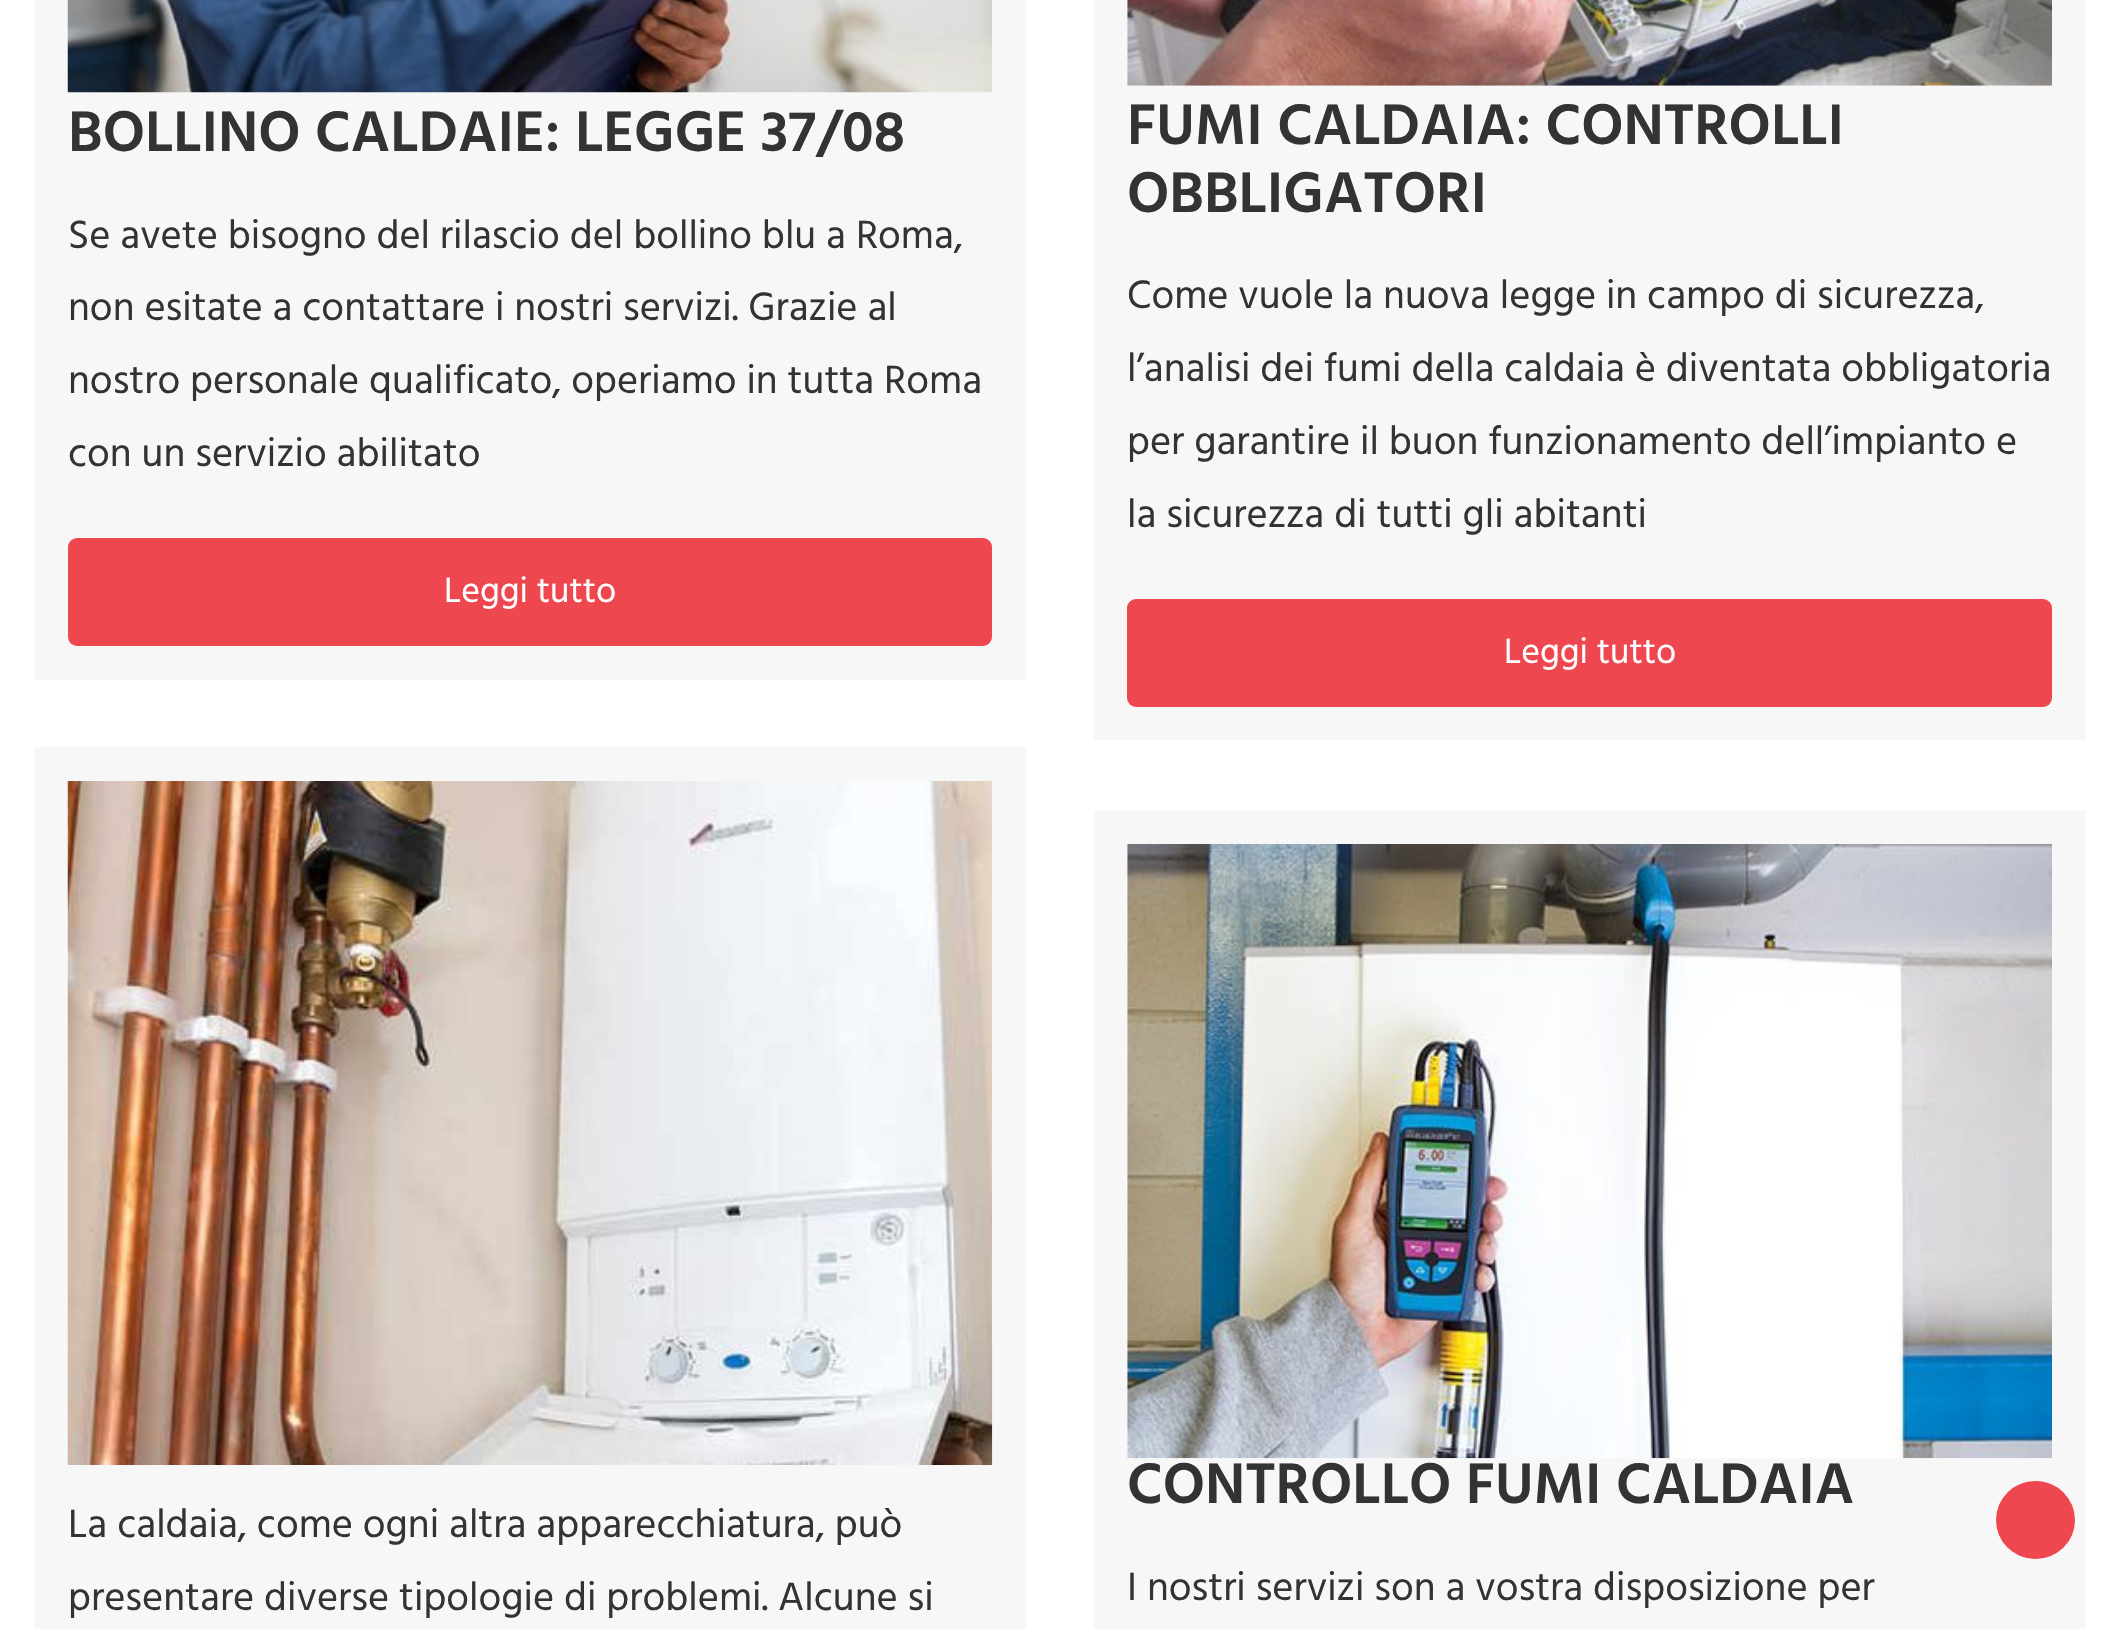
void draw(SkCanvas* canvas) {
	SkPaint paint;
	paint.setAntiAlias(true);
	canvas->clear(0xffffffff);
	paint.setColor(0xfff7f7f7);
	canvas->drawRect(SkRect::MakeXYWH(34, 0, 992, 680), paint);
	canvas->drawImageRect(SkImages::DeferredFromEncodedData(SkData::MakeFromFileName("img1.png")), SkRect::MakeXYWH(67, 0, 925, 93), SkSamplingOptions());
	SkFont f1(fontMgr->matchFamilyStyle("Hind Madurai", SkFontStyle(600, SkFontStyle::kNormal_Width, SkFontStyle::kUpright_Slant)), 58.5);
	f1.setSubpixel(true);
	paint.setColor(0xff333333);
	canvas->drawString("BOLLINO CALDAIE: LEGGE 37/08", 68, 151, f1, paint);
	SkFont f2(fontMgr->matchFamilyStyle("Hind Madurai", SkFontStyle::Normal()), 40.5);
	f2.setSubpixel(true);
	canvas->drawString("Se avete bisogno del rilascio del bollino blu a Roma,", 68, 248, f2, paint);
	canvas->drawString("non esitate a contattare i nostri servizi. Grazie al", 68, 320, f2, paint);
	canvas->drawString("nostro personale qualificato, operiamo in tutta Roma", 68, 393, f2, paint);
	canvas->drawString("con un servizio abilitato", 68, 466, f2, paint);
	paint.setColor(0xffef474f);
	canvas->drawRoundRect(SkRect::MakeXYWH(68, 538, 924, 108), 9, 9, paint);
	SkFont f3(fontMgr->matchFamilyStyle("Hind Madurai", SkFontStyle::Normal()), 36);
	f3.setSubpixel(true);
	paint.setColor(0xffffffff);
	canvas->drawString("Leggi tutto", 444, 602, f3, paint);
	paint.setColor(0xfff7f7f7);
	canvas->drawRect(SkRect::MakeXYWH(1094, 0, 992, 740), paint);
	canvas->drawImageRect(SkImages::DeferredFromEncodedData(SkData::MakeFromFileName("img2.png")), SkRect::MakeXYWH(1127, 0, 925, 86), SkSamplingOptions());
	paint.setColor(0xff333333);
	canvas->drawString("FUMI CALDAIA: CONTROLLI", 1127, 144, f1, paint);
	canvas->drawString("OBBLIGATORI", 1127, 212, f1, paint);
	canvas->drawString("Come vuole la nuova legge in campo di sicurezza,", 1127, 308, f2, paint);
	canvas->drawString("l’analisi dei fumi della caldaia è diventata obbligatoria", 1127, 381, f2, paint);
	canvas->drawString("per garantire il buon funzionamento dell’impianto e", 1127, 454, f2, paint);
	canvas->drawString("la sicurezza di tutti gli abitanti", 1127, 527, f2, paint);
	paint.setColor(0xffef474f);
	canvas->drawRoundRect(SkRect::MakeXYWH(1127, 599, 925, 108), 9, 9, paint);
	paint.setColor(0xffffffff);
	canvas->drawString("Leggi tutto", 1504, 663, f3, paint);
	paint.setColor(0xfff7f7f7);
	canvas->drawRect(SkRect::MakeXYWH(34, 747, 992, 882), paint);
	canvas->drawImageRect(SkImages::DeferredFromEncodedData(SkData::MakeFromFileName("img3.png")), SkRect::MakeXYWH(67, 781, 926, 684), SkSamplingOptions());
	paint.setColor(0xff333333);
	canvas->drawString("La caldaia, come ogni altra apparecchiatura, può", 68, 1537, f2, paint);
	canvas->drawString("presentare diverse tipologie di problemi. Alcune si", 68, 1610, f2, paint);
	paint.setColor(0xfff7f7f7);
	canvas->drawRect(SkRect::MakeXYWH(1094, 810, 992, 819), paint);
	canvas->drawImageRect(SkImages::DeferredFromEncodedData(SkData::MakeFromFileName("img4.png")), SkRect::MakeXYWH(1127, 844, 925, 615), SkSamplingOptions());
	paint.setColor(0xff333333);
	canvas->drawString("CONTROLLO FUMI CALDAIA", 1127, 1503, f1, paint);
	canvas->drawString("I nostri servizi son a vostra disposizione per", 1127, 1600, f2, paint);
	paint.setColor(0xffef474f);
	canvas->drawRoundRect(SkRect::MakeXYWH(1996, 1481, 79, 78), 39, 39, paint);
}
